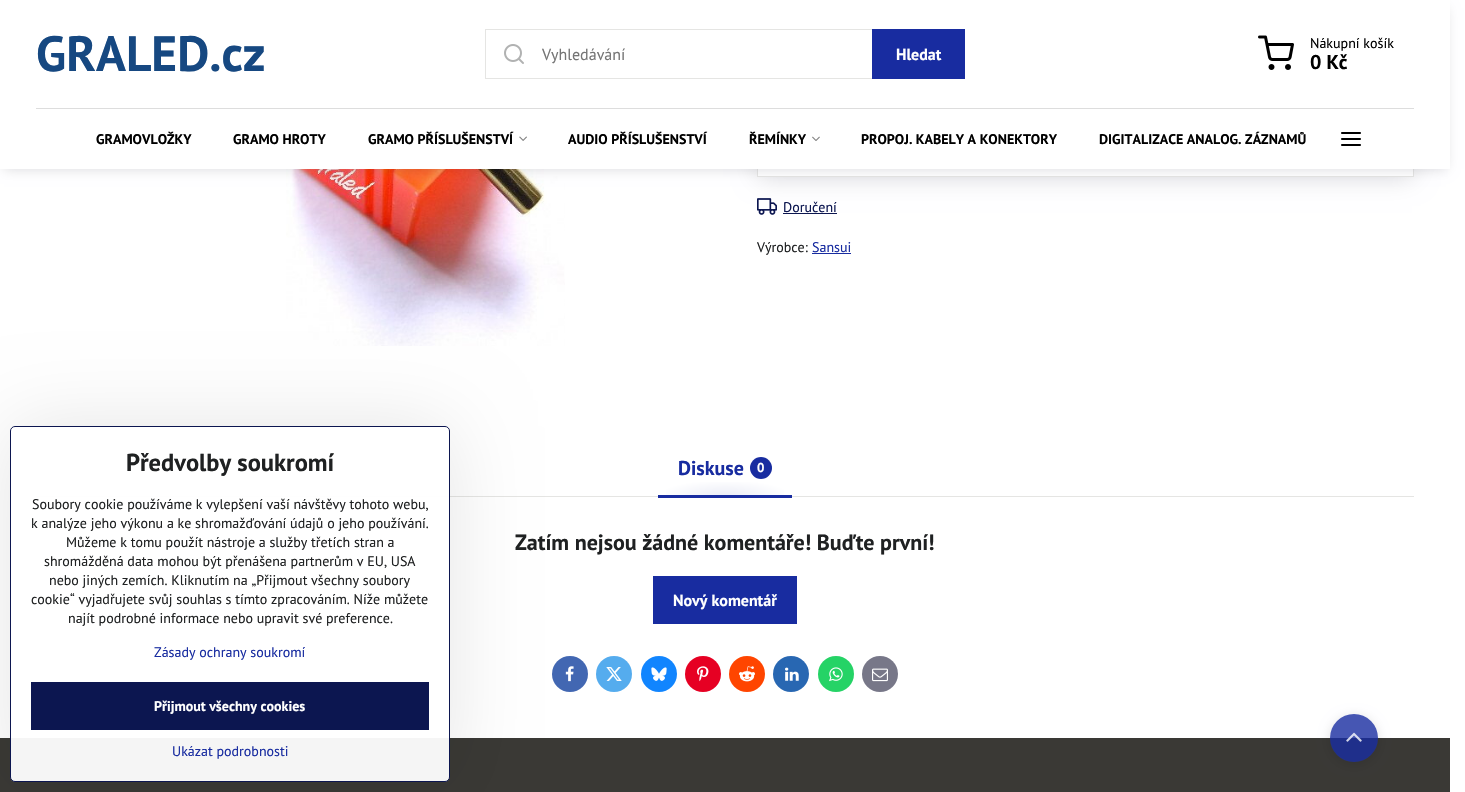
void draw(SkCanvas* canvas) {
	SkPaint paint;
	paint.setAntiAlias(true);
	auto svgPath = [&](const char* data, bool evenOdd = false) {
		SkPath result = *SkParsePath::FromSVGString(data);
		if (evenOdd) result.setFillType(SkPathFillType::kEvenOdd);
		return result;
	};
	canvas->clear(0xffffffff);
	canvas->drawImageRect(SkImages::DeferredFromEncodedData(SkData::MakeFromFileName("img6.png")), SkRect::MakeXYWH(286, 169, 279, 177), SkSamplingOptions());
	canvas->drawImageRect(SkImages::DeferredFromEncodedData(SkData::MakeFromFileName("img7.png")), SkRect::MakeXYWH(757, 198, 20, 17), SkSamplingOptions());
	paint.setColor(0xff0c1650);
	canvas->drawRect(SkRect::MakeXYWH(783, 213, 54, 1), paint);
	canvas->save();
	canvas->clipPath(svgPath("M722 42H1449V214H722ZM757 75H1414V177H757Z", true), true);
	paint.setColor(0x26000014);
	paint.setMaskFilter(SkMaskFilter::MakeBlur(kNormal_SkBlurStyle, 12));
	canvas->drawRect(SkRect::MakeXYWH(759, 79, 653, 98), paint);
	paint.setMaskFilter(nullptr);
	canvas->restore();
	paint.setStroke(true);
	paint.setStrokeWidth(1);
	paint.setColor(0xffe5e5e3);
	canvas->drawRect(SkRect::MakeXYWH(757.5, 75.5, 656, 101), paint);
	paint.setStroke(false);
	paint.setColor(0x26000014);
	paint.setMaskFilter(SkMaskFilter::MakeBlur(kNormal_SkBlurStyle, 6));
	canvas->drawRect(SkRect::MakeXYWH(4, 8, 1442, 161), paint);
	paint.setMaskFilter(nullptr);
	paint.setColor(0xffffffff);
	canvas->drawRect(SkRect::MakeXYWH(0, 0, 1450, 169), paint);
	SkFont f1(fontMgr->matchFamilyStyle("PT Sans", SkFontStyle::Bold()), 49.5);
	f1.setSubpixel(true);
	paint.setColor(0xff164881);
	canvas->drawString("GRALED.cz", 36, 71, f1, paint);
	paint.setStroke(true);
	paint.setColor(0xffe5e5e3);
	canvas->drawRect(SkRect::MakeXYWH(485.5, 29.5, 479, 49), paint);
	canvas->drawImageRect(SkImages::DeferredFromEncodedData(SkData::MakeFromFileName("img1.png")), SkRect::MakeXYWH(504, 44, 20, 20), SkSamplingOptions());
	SkFont f2(fontMgr->matchFamilyStyle("PT Sans", SkFontStyle::Normal()), 16);
	f2.setSubpixel(true);
	paint.setStroke(false);
	paint.setColor(0xff757575);
	canvas->drawString("Vyhledávání", 542, 60, f2, paint);
	paint.setColor(0xff182ca0);
	canvas->drawRect(SkRect::MakeXYWH(872, 29, 93, 50), paint);
	SkFont f3(fontMgr->matchFamilyStyle("PT Sans", SkFontStyle::Bold()), 16);
	f3.setSubpixel(true);
	paint.setColor(0xffffffff);
	canvas->drawString("Hledat", 896, 60, f3, paint);
	canvas->drawImageRect(SkImages::DeferredFromEncodedData(SkData::MakeFromFileName("img2.png")), SkRect::MakeXYWH(1258, 35, 36, 35), SkSamplingOptions());
	SkFont f4(fontMgr->matchFamilyStyle("PT Sans", SkFontStyle::Normal()), 14);
	f4.setSubpixel(true);
	paint.setColor(0xff000000);
	canvas->drawString("Nákupní košík", 1310, 48, f4, paint);
	SkFont f5(fontMgr->matchFamilyStyle("PT Sans", SkFontStyle::Bold()), 20);
	f5.setSubpixel(true);
	canvas->drawString("0 Kč", 1310, 69, f5, paint);
	paint.setColor(0xffdddddd);
	canvas->drawRect(SkRect::MakeXYWH(36, 108, 1378, 1), paint);
	SkFont f6(fontMgr->matchFamilyStyle("PT Sans", SkFontStyle::Bold()), 14);
	f6.setSubpixel(true);
	paint.setColor(0xff000000);
	canvas->drawString("GRAMOVLOŽKY", 96, 144, f6, paint);
	canvas->drawString("GRAMO HROTY", 233, 144, f6, paint);
	canvas->drawString("GRAMO PŘÍSLUŠENSTVÍ", 368, 144, f6, paint);
	canvas->drawImageRect(SkImages::DeferredFromEncodedData(SkData::MakeFromFileName("img3.png")), SkRect::MakeXYWH(519, 136, 8, 5), SkSamplingOptions());
	canvas->drawString("AUDIO PŘÍSLUŠENSTVÍ", 568, 144, f6, paint);
	canvas->drawString("ŘEMÍNKY", 749, 144, f6, paint);
	canvas->drawImageRect(SkImages::DeferredFromEncodedData(SkData::MakeFromFileName("img4.png")), SkRect::MakeXYWH(812, 136, 8, 5), SkSamplingOptions());
	canvas->drawString("PROPOJ. KABELY A KONEKTORY", 861, 144, f6, paint);
	canvas->drawString("DIGITALIZACE ANALOG. ZÁZNAMŮ", 1099, 144, f6, paint);
	canvas->drawImageRect(SkImages::DeferredFromEncodedData(SkData::MakeFromFileName("img5.png")), SkRect::MakeXYWH(1341, 132, 20, 14), SkSamplingOptions());
	paint.setColor(0xff0c1650);
	canvas->drawString("Doručení", 783, 212, f4, paint);
	paint.setColor(0xff1f2122);
	canvas->drawString("Výrobce:", 757, 252, f4, paint);
	paint.setColor(0xff182ca0);
	canvas->drawString("Sansui", 812, 252, f4, paint);
	canvas->drawRect(SkRect::MakeXYWH(812, 253, 39, 1), paint);
	paint.setColor(0xffe5e5e3);
	canvas->drawRect(SkRect::MakeXYWH(36, 496, 1378, 1), paint);
	paint.setColor(0xff182ca0);
	canvas->drawRect(SkRect::MakeXYWH(658, 495, 134, 3), paint);
	{
		const SkColor colors[] = {0xffeaecf6, 0xffffffff};
		const float stops[] = {0, 1};
		SkMatrix m = SkMatrix::Translate(725, 496).preScale(67, 16);
		paint.setShader(SkGradientShader::MakeRadial({0, 0}, 1, colors, stops, 2, SkTileMode::kClamp, 0, &m));
		paint.setAlpha(255);
	}
	canvas->drawRect(SkRect::MakeXYWH(666, 482, 118, 13), paint);
	paint.setShader(nullptr);
	paint.setColor(0xff182ca0);
	canvas->drawString("Diskuse", 678, 475, f5, paint);
	canvas->drawCircle(761, 468, 11, paint);
	SkFont f7(fontMgr->matchFamilyStyle("PT Sans", SkFontStyle::Bold()), 13);
	f7.setSubpixel(true);
	paint.setColor(0xffffffff);
	canvas->drawString("0", 757, 472, f7, paint);
	SkFont f8(fontMgr->matchFamilyStyle("PT Sans", SkFontStyle::Bold()), 22);
	f8.setSubpixel(true);
	paint.setColor(0xff1f2122);
	canvas->drawString("Zatím nejsou žádné komentáře! Buďte první!", 515, 550, f8, paint);
	paint.setColor(0xff182ca0);
	canvas->drawRect(SkRect::MakeXYWH(653, 576, 144, 48), paint);
	paint.setColor(0xffffffff);
	canvas->drawString("Nový komentář", 673, 606, f3, paint);
	paint.setColor(0xff4267b2);
	canvas->drawCircle(570, 674, 18, paint);
	canvas->drawImageRect(SkImages::DeferredFromEncodedData(SkData::MakeFromFileName("img8.png")), SkRect::MakeXYWH(565, 666, 9, 16), SkSamplingOptions());
	paint.setColor(0xff55acee);
	canvas->drawCircle(614, 674, 18, paint);
	canvas->drawImageRect(SkImages::DeferredFromEncodedData(SkData::MakeFromFileName("img9.png")), SkRect::MakeXYWH(606, 667, 16, 14), SkSamplingOptions());
	paint.setColor(0xff1185fe);
	canvas->drawCircle(659, 674, 18, paint);
	canvas->drawImageRect(SkImages::DeferredFromEncodedData(SkData::MakeFromFileName("img10.png")), SkRect::MakeXYWH(651, 667, 16, 14), SkSamplingOptions());
	paint.setColor(0xffe60023);
	canvas->drawCircle(703, 674, 18, paint);
	canvas->drawImageRect(SkImages::DeferredFromEncodedData(SkData::MakeFromFileName("img11.png")), SkRect::MakeXYWH(697, 666, 12, 16), SkSamplingOptions());
	paint.setColor(0xffff4500);
	canvas->drawCircle(747, 674, 18, paint);
	canvas->drawImageRect(SkImages::DeferredFromEncodedData(SkData::MakeFromFileName("img12.png")), SkRect::MakeXYWH(739, 666, 16, 16), SkSamplingOptions());
	paint.setColor(0xff2867b2);
	canvas->drawCircle(791, 674, 18, paint);
	canvas->drawImageRect(SkImages::DeferredFromEncodedData(SkData::MakeFromFileName("img13.png")), SkRect::MakeXYWH(785, 667, 14, 14), SkSamplingOptions());
	paint.setColor(0xff25d366);
	canvas->drawCircle(836, 674, 18, paint);
	canvas->drawImageRect(SkImages::DeferredFromEncodedData(SkData::MakeFromFileName("img14.png")), SkRect::MakeXYWH(829, 667, 14, 15), SkSamplingOptions());
	paint.setColor(0xff777788);
	canvas->drawCircle(880, 674, 18, paint);
	canvas->drawImageRect(SkImages::DeferredFromEncodedData(SkData::MakeFromFileName("img15.png")), SkRect::MakeXYWH(872, 668, 16, 14), SkSamplingOptions());
	paint.setColor(0xff3a3935);
	canvas->drawRect(SkRect::MakeXYWH(0, 738, 1450, 54), paint);
	canvas->save();
	canvas->clipPath(svgPath("M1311 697H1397V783H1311ZM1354 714C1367.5 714 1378 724.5 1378 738C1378 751.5 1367.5 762 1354 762C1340.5 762 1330 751.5 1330 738C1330 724.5 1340.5 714 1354 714Z", true), true);
	paint.setColor(0x1f000014);
	paint.setMaskFilter(SkMaskFilter::MakeBlur(kNormal_SkBlurStyle, 6));
	canvas->drawRoundRect(SkRect::MakeXYWH(1330, 716, 48, 48), 24, 24, paint);
	paint.setMaskFilter(nullptr);
	canvas->restore();
	paint.setColor(0xcc182ca0);
	canvas->drawCircle(1354, 738, 24, paint);
	canvas->drawImageRect(SkImages::DeferredFromEncodedData(SkData::MakeFromFileName("img16.png")), SkRect::MakeXYWH(1346, 732, 16, 10), SkSamplingOptions());
	canvas->save();
	canvas->clipPath(svgPath("M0 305H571V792H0ZM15 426H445C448 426 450 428 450 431V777C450 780 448 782 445 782H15C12 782 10 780 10 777V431C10 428 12 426 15 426Z", true), true);
	paint.setColor(0x1a000000);
	paint.setMaskFilter(SkMaskFilter::MakeBlur(kNormal_SkBlurStyle, 40));
	canvas->drawRoundRect(SkRect::MakeXYWH(10, 426, 440, 356), 5, 5, paint);
	paint.setMaskFilter(nullptr);
	canvas->restore();
	paint.setColor(0xf2ffffff);
	canvas->drawRoundRect(SkRect::MakeXYWH(10.5, 426.5, 439, 355), 4.5, 4.5, paint);
	paint.setStroke(true);
	paint.setColor(0xff0c1650);
	canvas->drawRoundRect(SkRect::MakeXYWH(10.5, 426.5, 439, 355), 4.5, 4.5, paint);
	SkFont f9(fontMgr->matchFamilyStyle("PT Sans", SkFontStyle::Bold()), 24.5);
	f9.setSubpixel(true);
	paint.setStroke(false);
	paint.setColor(0xff1f2122);
	canvas->drawString("Předvolby soukromí", 126, 471, f9, paint);
	canvas->drawString("Soubory cookie používáme k vylepšení vaší návštěvy tohoto webu,", 32, 509, f4, paint);
	canvas->drawString("k analýze jeho výkonu a ke shromažďování údajů o jeho používání.", 31, 528, f4, paint);
	canvas->drawString("Můžeme k tomu použít nástroje a služby třetích stran a", 66, 547, f4, paint);
	canvas->drawString("shromážděná data mohou být přenášena partnerům v EU, USA", 44, 566, f4, paint);
	canvas->drawString("nebo jiných zemích. Kliknutím na „Přijmout všechny soubory", 49, 585, f4, paint);
	canvas->drawString("cookie“ vyjadřujete svůj souhlas s tímto zpracováním. Níže můžete", 31, 604, f4, paint);
	canvas->drawString("najít podrobné informace nebo upravit své preference.", 68, 623, f4, paint);
	paint.setColor(0xff182ca0);
	canvas->drawString("Zásady ochrany soukromí", 154, 657, f4, paint);
	paint.setColor(0xff0c1650);
	canvas->drawRect(SkRect::MakeXYWH(31, 682, 398, 48), paint);
	paint.setColor(0xffffffff);
	canvas->drawString("Přijmout všechny cookies", 154, 711, f6, paint);
	paint.setColor(0xff182ca0);
	canvas->drawString("Ukázat podrobnosti", 172, 756, f4, paint);
}
